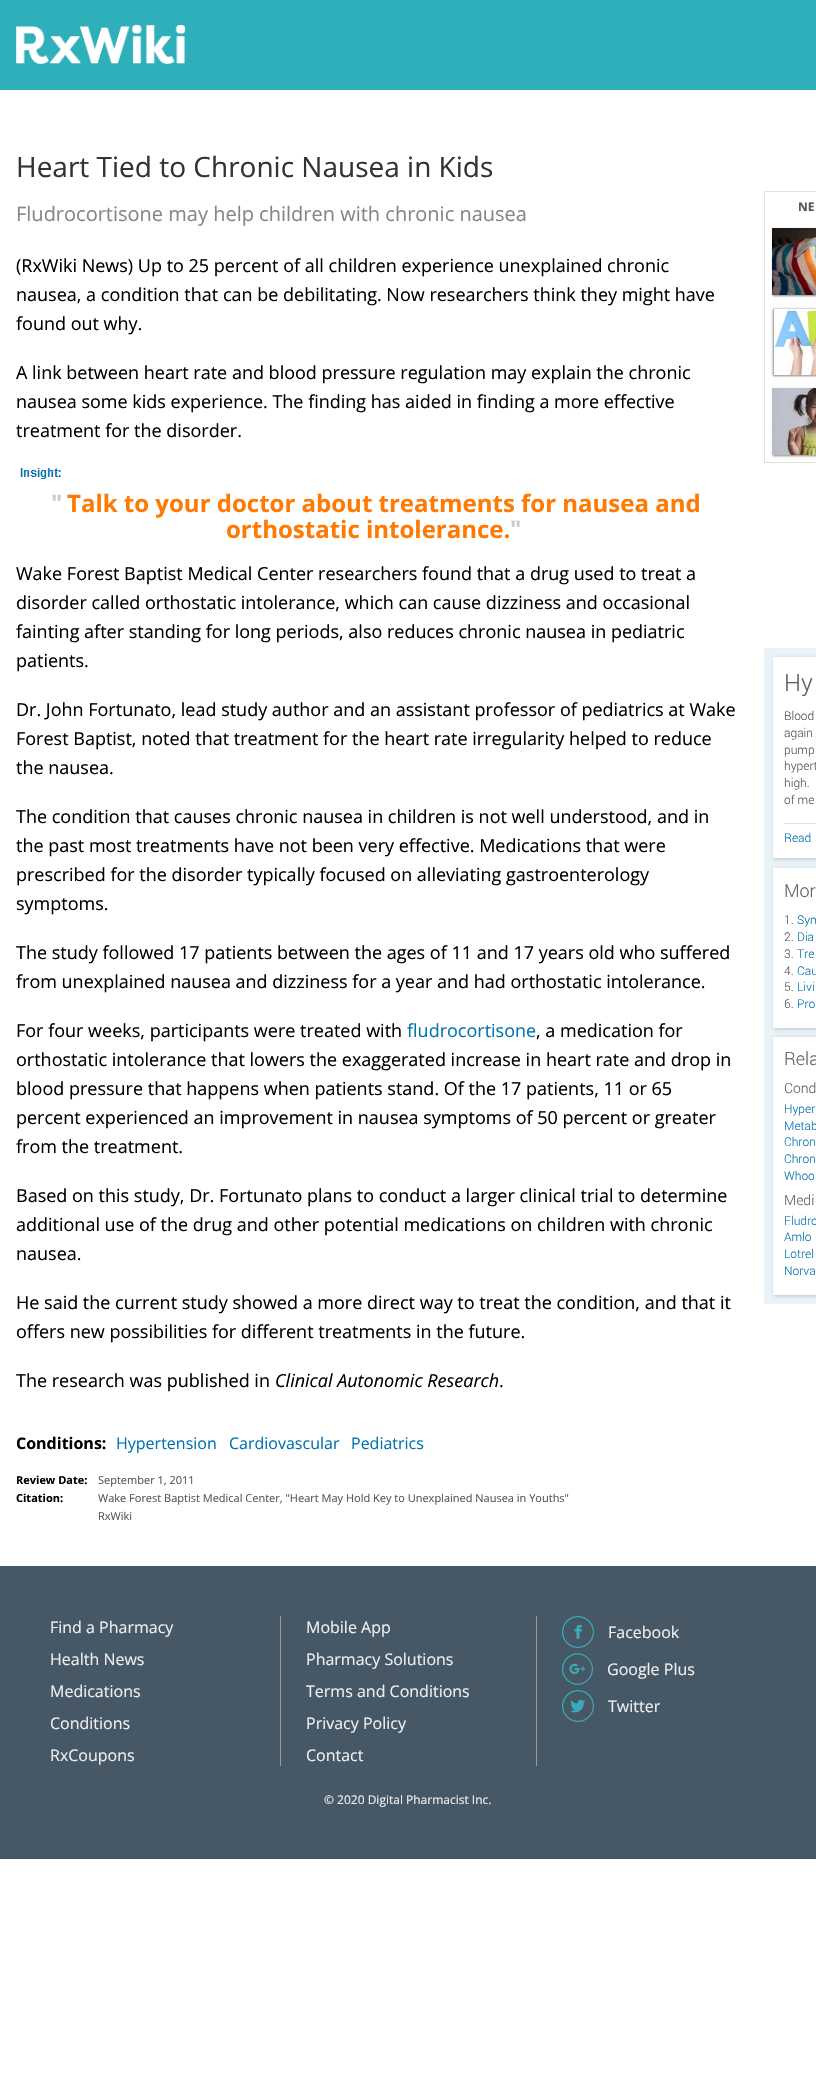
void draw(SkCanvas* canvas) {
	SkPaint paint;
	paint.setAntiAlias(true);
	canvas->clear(0xffffffff);
	paint.setColor(0xff2fafb9);
	canvas->drawRect(SkRect::MakeXYWH(0, 0, 816, 90), paint);
	canvas->drawImageRect(SkImages::DeferredFromEncodedData(SkData::MakeFromFileName("img1.png")), SkRect::MakeXYWH(16, 25, 169, 40), SkSamplingOptions());
	SkFont f1(fontMgr->matchFamilyStyle("Open Sans", SkFontStyle::Normal()), 28);
	f1.setSubpixel(true);
	paint.setColor(0xff333333);
	canvas->drawString("Heart Tied to Chronic Nausea in Kids", 16, 177, f1, paint);
	SkFont f2(fontMgr->matchFamilyStyle("Open Sans", SkFontStyle::Normal()), 20);
	f2.setSubpixel(true);
	paint.setColor(0xff868686);
	canvas->drawString("Fludrocortisone may help children with chronic nausea", 16, 221, f2, paint);
	SkFont f3(fontMgr->matchFamilyStyle("Open Sans", SkFontStyle::Normal()), 18);
	f3.setSubpixel(true);
	paint.setColor(0xff000000);
	canvas->drawString("(RxWiki News) Up to 25 percent of all children experience unexplained chronic", 16, 272, f3, paint);
	canvas->drawString("nausea, a condition that can be debilitating. Now researchers think they might have", 16, 301, f3, paint);
	canvas->drawString("found out why.", 16, 330, f3, paint);
	canvas->drawString("A link between heart rate and blood pressure regulation may explain the chronic", 16, 379, f3, paint);
	canvas->drawString("nausea some kids experience. The finding has aided in finding a more effective", 16, 408, f3, paint);
	canvas->drawString("treatment for the disorder.", 16, 437, f3, paint);
	canvas->drawImageRect(SkImages::DeferredFromEncodedData(SkData::MakeFromFileName("img2.png")), SkRect::MakeXYWH(20, 468, 41, 11), SkSamplingOptions());
	SkFont f4(fontMgr->matchFamilyStyle("Open Sans", SkFontStyle::Bold()), 24);
	f4.setSubpixel(true);
	paint.setColor(0xffcccccc);
	canvas->drawString("\"", 51, 512, f4, paint);
	paint.setColor(0xffff7a04);
	canvas->drawString("Talk to your doctor about treatments for nausea and", 67, 512, f4, paint);
	canvas->drawString("orthostatic intolerance.", 226, 538, f4, paint);
	paint.setColor(0xffcccccc);
	canvas->drawString("\"", 510, 538, f4, paint);
	paint.setColor(0xff000000);
	canvas->drawString("Wake Forest Baptist Medical Center researchers found that a drug used to treat a", 16, 580, f3, paint);
	canvas->drawString("disorder called orthostatic intolerance, which can cause dizziness and occasional", 16, 609, f3, paint);
	canvas->drawString("fainting after standing for long periods, also reduces chronic nausea in pediatric", 16, 638, f3, paint);
	canvas->drawString("patients.", 16, 667, f3, paint);
	canvas->drawString("Dr. John Fortunato, lead study author and an assistant professor of pediatrics at Wake", 16, 716, f3, paint);
	canvas->drawString("Forest Baptist, noted that treatment for the heart rate irregularity helped to reduce", 16, 745, f3, paint);
	canvas->drawString("the nausea.", 16, 774, f3, paint);
	canvas->drawString("The condition that causes chronic nausea in children is not well understood, and in", 16, 823, f3, paint);
	canvas->drawString("the past most treatments have not been very effective. Medications that were", 16, 852, f3, paint);
	canvas->drawString("prescribed for the disorder typically focused on alleviating gastroenterology", 16, 881, f3, paint);
	canvas->drawString("symptoms.", 16, 910, f3, paint);
	canvas->drawString("The study followed 17 patients between the ages of 11 and 17 years old who suffered", 16, 959, f3, paint);
	canvas->drawString("from unexplained nausea and dizziness for a year and had orthostatic intolerance.", 16, 988, f3, paint);
	canvas->drawString("For four weeks, participants were treated with", 16, 1037, f3, paint);
	paint.setColor(0xff0073b1);
	canvas->drawString("fludrocortisone", 407, 1037, f3, paint);
	paint.setColor(0xff000000);
	canvas->drawString(", a medication for", 536, 1037, f3, paint);
	canvas->drawString("orthostatic intolerance that lowers the exaggerated increase in heart rate and drop in", 16, 1066, f3, paint);
	canvas->drawString("blood pressure that happens when patients stand. Of the 17 patients, 11 or 65", 16, 1095, f3, paint);
	canvas->drawString("percent experienced an improvement in nausea symptoms of 50 percent or greater", 16, 1124, f3, paint);
	canvas->drawString("from the treatment.", 16, 1153, f3, paint);
	canvas->drawString("Based on this study, Dr. Fortunato plans to conduct a larger clinical trial to determine", 16, 1202, f3, paint);
	canvas->drawString("additional use of the drug and other potential medications on children with chronic", 16, 1231, f3, paint);
	canvas->drawString("nausea.", 16, 1260, f3, paint);
	canvas->drawString("He said the current study showed a more direct way to treat the condition, and that it", 16, 1309, f3, paint);
	canvas->drawString("offers new possibilities for different treatments in the future.", 16, 1338, f3, paint);
	canvas->drawString("The research was published in", 16, 1387, f3, paint);
	SkFont f5(fontMgr->matchFamilyStyle("Open Sans", SkFontStyle::Italic()), 18);
	f5.setSubpixel(true);
	canvas->drawString("Clinical Autonomic Research", 275, 1387, f5, paint);
	canvas->drawString(".", 499, 1387, f3, paint);
	SkFont f6(fontMgr->matchFamilyStyle("Open Sans", SkFontStyle::Bold()), 16);
	f6.setSubpixel(true);
	canvas->drawString("Conditions:", 16, 1449, f6, paint);
	SkFont f7(fontMgr->matchFamilyStyle("Open Sans", SkFontStyle::Normal()), 16);
	f7.setSubpixel(true);
	paint.setColor(0xff0073b1);
	canvas->drawString("Hypertension", 116, 1449, f7, paint);
	canvas->drawString("Cardiovascular", 229, 1449, f7, paint);
	canvas->drawString("Pediatrics", 351, 1449, f7, paint);
	SkFont f8(fontMgr->matchFamilyStyle("Open Sans", SkFontStyle::Bold()), 11);
	f8.setSubpixel(true);
	paint.setColor(0xff000000);
	canvas->drawString("Review Date:", 16, 1484, f8, paint);
	SkFont f9(fontMgr->matchFamilyStyle("Open Sans", SkFontStyle::Normal()), 11);
	f9.setSubpixel(true);
	paint.setColor(0xff555555);
	canvas->drawString("September 1, 2011", 98, 1484, f9, paint);
	paint.setColor(0xff000000);
	canvas->drawString("Citation:", 16, 1502, f8, paint);
	paint.setColor(0xff555555);
	canvas->drawString("Wake Forest Baptist Medical Center, \"Heart May Hold Key to Unexplained Nausea in Youths\"", 98, 1502, f9, paint);
	canvas->drawString("RxWiki", 98, 1520, f9, paint);
	paint.setStroke(true);
	paint.setStrokeWidth(1);
	paint.setColor(0xffe1e1e1);
	canvas->drawRect(SkRect::MakeXYWH(764.5, 191.5, 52, 271), paint);
	SkFont f10(fontMgr->matchFamilyStyle("Open Sans", SkFontStyle::Bold()), 12);
	f10.setSubpixel(true);
	paint.setStroke(false);
	paint.setColor(0xff555555);
	canvas->drawString("NE", 798, 211, f10, paint);
	paint.setColor(0xff888888);
	paint.setMaskFilter(SkMaskFilter::MakeBlur(kNormal_SkBlurStyle, 1));
	canvas->drawRect(SkRect::MakeXYWH(773, 229, 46, 67), paint);
	paint.setMaskFilter(nullptr);
	canvas->drawImageRect(SkImages::DeferredFromEncodedData(SkData::MakeFromFileName("img3.png")), SkRect::MakeXYWH(772, 228, 44, 67), SkSamplingOptions());
	paint.setMaskFilter(SkMaskFilter::MakeBlur(kNormal_SkBlurStyle, 1));
	canvas->drawRect(SkRect::MakeXYWH(773, 309, 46, 67), paint);
	paint.setMaskFilter(nullptr);
	canvas->drawImageRect(SkImages::DeferredFromEncodedData(SkData::MakeFromFileName("img4.png")), SkRect::MakeXYWH(774, 309, 42, 66), SkSamplingOptions());
	paint.setMaskFilter(SkMaskFilter::MakeBlur(kNormal_SkBlurStyle, 1));
	canvas->drawRect(SkRect::MakeXYWH(773, 389, 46, 67), paint);
	paint.setMaskFilter(nullptr);
	canvas->drawImageRect(SkImages::DeferredFromEncodedData(SkData::MakeFromFileName("img5.png")), SkRect::MakeXYWH(772, 388, 44, 67), SkSamplingOptions());
	paint.setColor(0xffeaf3f7);
	canvas->drawRect(SkRect::MakeXYWH(764, 648, 52, 656), paint);
	paint.setColor(0x33000000);
	paint.setMaskFilter(SkMaskFilter::MakeBlur(kNormal_SkBlurStyle, 2));
	canvas->drawRect(SkRect::MakeXYWH(774, 658, 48, 201), paint);
	paint.setMaskFilter(nullptr);
	paint.setColor(0xffffffff);
	canvas->drawRect(SkRect::MakeXYWH(773, 657, 43, 201), paint);
	SkFont f11(fontMgr->matchFamilyStyle("Roboto", SkFontStyle(300, SkFontStyle::kNormal_Width, SkFontStyle::kUpright_Slant)), 24);
	f11.setSubpixel(true);
	paint.setColor(0xff5e5e5e);
	canvas->drawString("Hy", 784, 691, f11, paint);
	paint.setColor(0xffe1e1e1);
	canvas->drawRect(SkRect::MakeXYWH(784, 823, 32, 1), paint);
	SkFont f12(fontMgr->matchFamilyStyle("Roboto", SkFontStyle(300, SkFontStyle::kNormal_Width, SkFontStyle::kUpright_Slant)), 12);
	f12.setSubpixel(true);
	paint.setColor(0xff555555);
	canvas->drawString("Blood", 784, 720, f12, paint);
	canvas->drawString("again", 784, 737, f12, paint);
	canvas->drawString("pump", 784, 754, f12, paint);
	canvas->drawString("hypert", 784, 770, f12, paint);
	canvas->drawString("high.", 784, 787, f12, paint);
	canvas->drawString("of me", 784, 804, f12, paint);
	paint.setColor(0xff0073b1);
	canvas->drawString("Read", 784, 842, f12, paint);
	paint.setColor(0x33000000);
	paint.setMaskFilter(SkMaskFilter::MakeBlur(kNormal_SkBlurStyle, 2));
	canvas->drawRect(SkRect::MakeXYWH(774, 869, 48, 160), paint);
	paint.setMaskFilter(nullptr);
	paint.setColor(0xffffffff);
	canvas->drawRect(SkRect::MakeXYWH(773, 868, 43, 160), paint);
	SkFont f13(fontMgr->matchFamilyStyle("Roboto", SkFontStyle(300, SkFontStyle::kNormal_Width, SkFontStyle::kUpright_Slant)), 18);
	f13.setSubpixel(true);
	paint.setColor(0xff5e5e5e);
	canvas->drawString("Mor", 784, 897, f13, paint);
	paint.setColor(0xff555555);
	canvas->drawString("1.", 784, 924, f12, paint);
	paint.setColor(0xff0073b1);
	canvas->drawString("Sym", 797, 924, f12, paint);
	paint.setColor(0xff555555);
	canvas->drawString("2.", 784, 941, f12, paint);
	paint.setColor(0xff0073b1);
	canvas->drawString("Dia", 797, 941, f12, paint);
	paint.setColor(0xff555555);
	canvas->drawString("3.", 784, 958, f12, paint);
	paint.setColor(0xff0073b1);
	canvas->drawString("Tre", 797, 958, f12, paint);
	paint.setColor(0xff555555);
	canvas->drawString("4.", 784, 975, f12, paint);
	paint.setColor(0xff0073b1);
	canvas->drawString("Cau", 797, 975, f12, paint);
	paint.setColor(0xff555555);
	canvas->drawString("5.", 784, 991, f12, paint);
	paint.setColor(0xff0073b1);
	canvas->drawString("Livi", 797, 991, f12, paint);
	paint.setColor(0xff555555);
	canvas->drawString("6.", 784, 1008, f12, paint);
	paint.setColor(0xff0073b1);
	canvas->drawString("Pro", 797, 1008, f12, paint);
	paint.setColor(0x33000000);
	paint.setMaskFilter(SkMaskFilter::MakeBlur(kNormal_SkBlurStyle, 2));
	canvas->drawRect(SkRect::MakeXYWH(774, 1038, 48, 258), paint);
	paint.setMaskFilter(nullptr);
	paint.setColor(0xffffffff);
	canvas->drawRect(SkRect::MakeXYWH(773, 1037, 43, 258), paint);
	paint.setColor(0xff5e5e5e);
	canvas->drawString("Rela", 784, 1065, f13, paint);
	SkFont f14(fontMgr->matchFamilyStyle("Roboto", SkFontStyle(300, SkFontStyle::kNormal_Width, SkFontStyle::kUpright_Slant)), 14);
	f14.setSubpixel(true);
	canvas->drawString("Cond", 784, 1093, f14, paint);
	paint.setColor(0xff0073b1);
	canvas->drawString("Hyper", 784, 1113, f12, paint);
	canvas->drawString("Metab", 784, 1130, f12, paint);
	canvas->drawString("Chron", 784, 1146, f12, paint);
	canvas->drawString("Chron", 784, 1163, f12, paint);
	canvas->drawString("Whoo", 784, 1180, f12, paint);
	paint.setColor(0xff5e5e5e);
	canvas->drawString("Medi", 784, 1205, f14, paint);
	paint.setColor(0xff0073b1);
	canvas->drawString("Fludro", 784, 1225, f12, paint);
	canvas->drawString("Amlo", 784, 1241, f12, paint);
	canvas->drawString("Lotrel", 784, 1258, f12, paint);
	canvas->drawString("Norva", 784, 1275, f12, paint);
	paint.setColor(0xff465765);
	canvas->drawRect(SkRect::MakeXYWH(0, 1566, 816, 293), paint);
	paint.setColor(0xffeeeeee);
	canvas->drawString("Find a Pharmacy", 50, 1633, f7, paint);
	canvas->drawString("Health News", 50, 1665, f7, paint);
	canvas->drawString("Medications", 50, 1697, f7, paint);
	canvas->drawString("Conditions", 50, 1729, f7, paint);
	canvas->drawString("RxCoupons", 50, 1761, f7, paint);
	paint.setColor(0xff999999);
	canvas->drawRect(SkRect::MakeXYWH(280, 1616, 1, 150), paint);
	paint.setColor(0xffeeeeee);
	canvas->drawString("Mobile App", 306, 1633, f7, paint);
	canvas->drawString("Pharmacy Solutions", 306, 1665, f7, paint);
	canvas->drawString("Terms and Conditions", 306, 1697, f7, paint);
	canvas->drawString("Privacy Policy", 306, 1729, f7, paint);
	canvas->drawString("Contact", 306, 1761, f7, paint);
	paint.setColor(0xff999999);
	canvas->drawRect(SkRect::MakeXYWH(536, 1616, 1, 150), paint);
	canvas->drawImageRect(SkImages::DeferredFromEncodedData(SkData::MakeFromFileName("img6.png")), SkRect::MakeXYWH(562, 1616, 32, 32), SkSamplingOptions());
	paint.setColor(0xffeeeeee);
	canvas->drawString("Facebook", 608, 1638, f7, paint);
	canvas->drawImageRect(SkImages::DeferredFromEncodedData(SkData::MakeFromFileName("img7.png")), SkRect::MakeXYWH(562, 1653, 31, 32), SkSamplingOptions());
	canvas->drawString("Google Plus", 607, 1675, f7, paint);
	canvas->drawImageRect(SkImages::DeferredFromEncodedData(SkData::MakeFromFileName("img8.png")), SkRect::MakeXYWH(562, 1690, 32, 32), SkSamplingOptions());
	canvas->drawString("Twitter", 608, 1712, f7, paint);
	SkFont f15(fontMgr->matchFamilyStyle("Open Sans", SkFontStyle::Normal()), 12);
	f15.setSubpixel(true);
	canvas->drawString("© 2020 Digital Pharmacist Inc.", 324, 1804, f15, paint);
}
